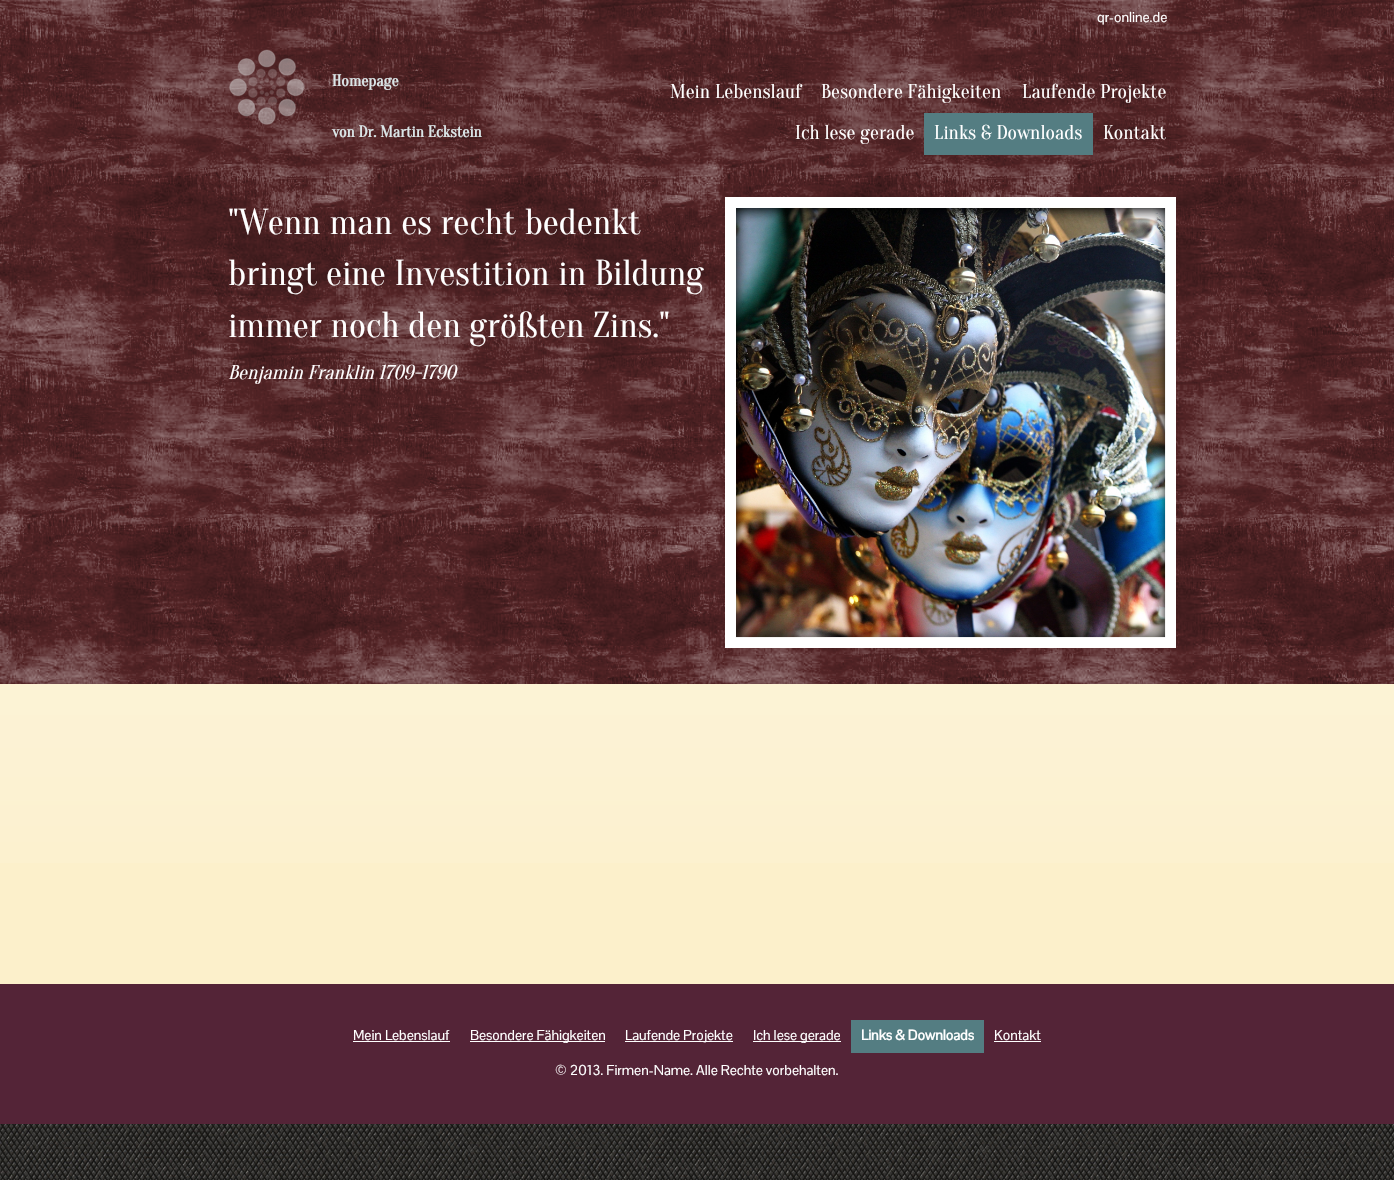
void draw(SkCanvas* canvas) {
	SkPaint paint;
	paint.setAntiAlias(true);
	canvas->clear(0xffffffff);
	canvas->drawImageRect(SkImages::DeferredFromEncodedData(SkData::MakeFromFileName("img1.png")), SkRect::MakeXYWH(0, 1124, 1394, 56), SkSamplingOptions());
	paint.setColor(0xff542426);
	canvas->drawRect(SkRect::MakeXYWH(0, 0, 1394, 684), paint);
	canvas->drawImageRect(SkImages::DeferredFromEncodedData(SkData::MakeFromFileName("img2.png")), SkRect::MakeXYWH(0, 0, 1394, 684), SkSamplingOptions());
	SkFont f1(fontMgr->matchFamilyStyle("Pontano Sans", SkFontStyle::Normal()), 14);
	f1.setSubpixel(true);
	paint.setColor(0xffffffff);
	canvas->drawString("qr-online.de", 1097, 22, f1, paint);
	canvas->drawImageRect(SkImages::DeferredFromEncodedData(SkData::MakeFromFileName("img3.png")), SkRect::MakeXYWH(229, 49, 76, 76), SkSamplingOptions());
	SkFont f2(fontMgr->matchFamilyStyle("Oranienbaum", SkFontStyle::Bold()), 16);
	f2.setSubpixel(true);
	paint.setColor(0xffdbe6e8);
	canvas->drawString("Homepage", 332, 86, f2, paint);
	canvas->drawString("von Dr. Martin Eckstein", 332, 137, f2, paint);
	SkFont f3(fontMgr->matchFamilyStyle("Oranienbaum", SkFontStyle::Normal()), 20);
	f3.setSubpixel(true);
	paint.setColor(0xffffffff);
	canvas->drawString("Mein Lebenslauf", 670, 98, f3, paint);
	canvas->drawString("Besondere Fähigkeiten", 821, 98, f3, paint);
	canvas->drawString("Laufende Projekte", 1022, 98, f3, paint);
	canvas->drawString("Ich lese gerade", 795, 139, f3, paint);
	paint.setColor(0xff547d82);
	canvas->drawRect(SkRect::MakeXYWH(924, 113, 169, 42), paint);
	paint.setColor(0xffffffff);
	canvas->drawString("Links & Downloads", 934, 139, f3, paint);
	canvas->drawString("Kontakt", 1103, 139, f3, paint);
	SkFont f4(fontMgr->matchFamilyStyle("Oranienbaum", SkFontStyle::Normal()), 36);
	f4.setSubpixel(true);
	canvas->drawString("\"Wenn man es recht bedenkt", 228, 234, f4, paint);
	canvas->drawString("bringt eine Investition in Bildung", 228, 285, f4, paint);
	canvas->drawString("immer noch den größten Zins.\"", 228, 337, f4, paint);
	SkFont f5(fontMgr->matchFamilyStyle("Oranienbaum", SkFontStyle::Italic()), 20);
	f5.setSubpixel(true);
	canvas->drawString("Benjamin Franklin 1709-1790", 228, 379, f5, paint);
	canvas->drawRect(SkRect::MakeXYWH(725, 197, 451, 451), paint);
	canvas->drawImageRect(SkImages::DeferredFromEncodedData(SkData::MakeFromFileName("img4.png")), SkRect::MakeXYWH(735, 207, 431, 431), SkSamplingOptions());
	paint.setColor(0xfffcf0cb);
	canvas->drawRect(SkRect::MakeXYWH(0, 684, 1394, 300), paint);
	canvas->drawImageRect(SkImages::DeferredFromEncodedData(SkData::MakeFromFileName("img5.png")), SkRect::MakeXYWH(0, 684, 1394, 179), SkSamplingOptions());
	paint.setColor(0xff542437);
	canvas->drawRect(SkRect::MakeXYWH(0, 984, 1394, 140), paint);
	paint.setColor(0xffffffff);
	canvas->drawString("Mein Lebenslauf", 353, 1040, f1, paint);
	canvas->drawRect(SkRect::MakeXYWH(353, 1041, 97, 1), paint);
	canvas->drawRect(SkRect::MakeXYWH(470, 1041, 135, 1), paint);
	canvas->drawString("Besondere Fähigkeiten", 470, 1040, f1, paint);
	canvas->drawRect(SkRect::MakeXYWH(625, 1041, 108, 1), paint);
	canvas->drawString("Laufende Projekte", 625, 1040, f1, paint);
	canvas->drawRect(SkRect::MakeXYWH(753, 1041, 88, 1), paint);
	canvas->drawString("Ich lese gerade", 753, 1040, f1, paint);
	paint.setColor(0xff547d82);
	canvas->drawRect(SkRect::MakeXYWH(851, 1020, 133, 33), paint);
	SkFont f6(fontMgr->matchFamilyStyle("Pontano Sans", SkFontStyle::Bold()), 14);
	f6.setSubpixel(true);
	paint.setColor(0xffffffff);
	canvas->drawString("Links & Downloads", 861, 1040, f6, paint);
	canvas->drawString("Kontakt", 994, 1040, f1, paint);
	canvas->drawRect(SkRect::MakeXYWH(994, 1041, 47, 1), paint);
	canvas->drawString("© 2013. Firmen-Name. Alle Rechte vorbehalten.", 555, 1075, f1, paint);
}
